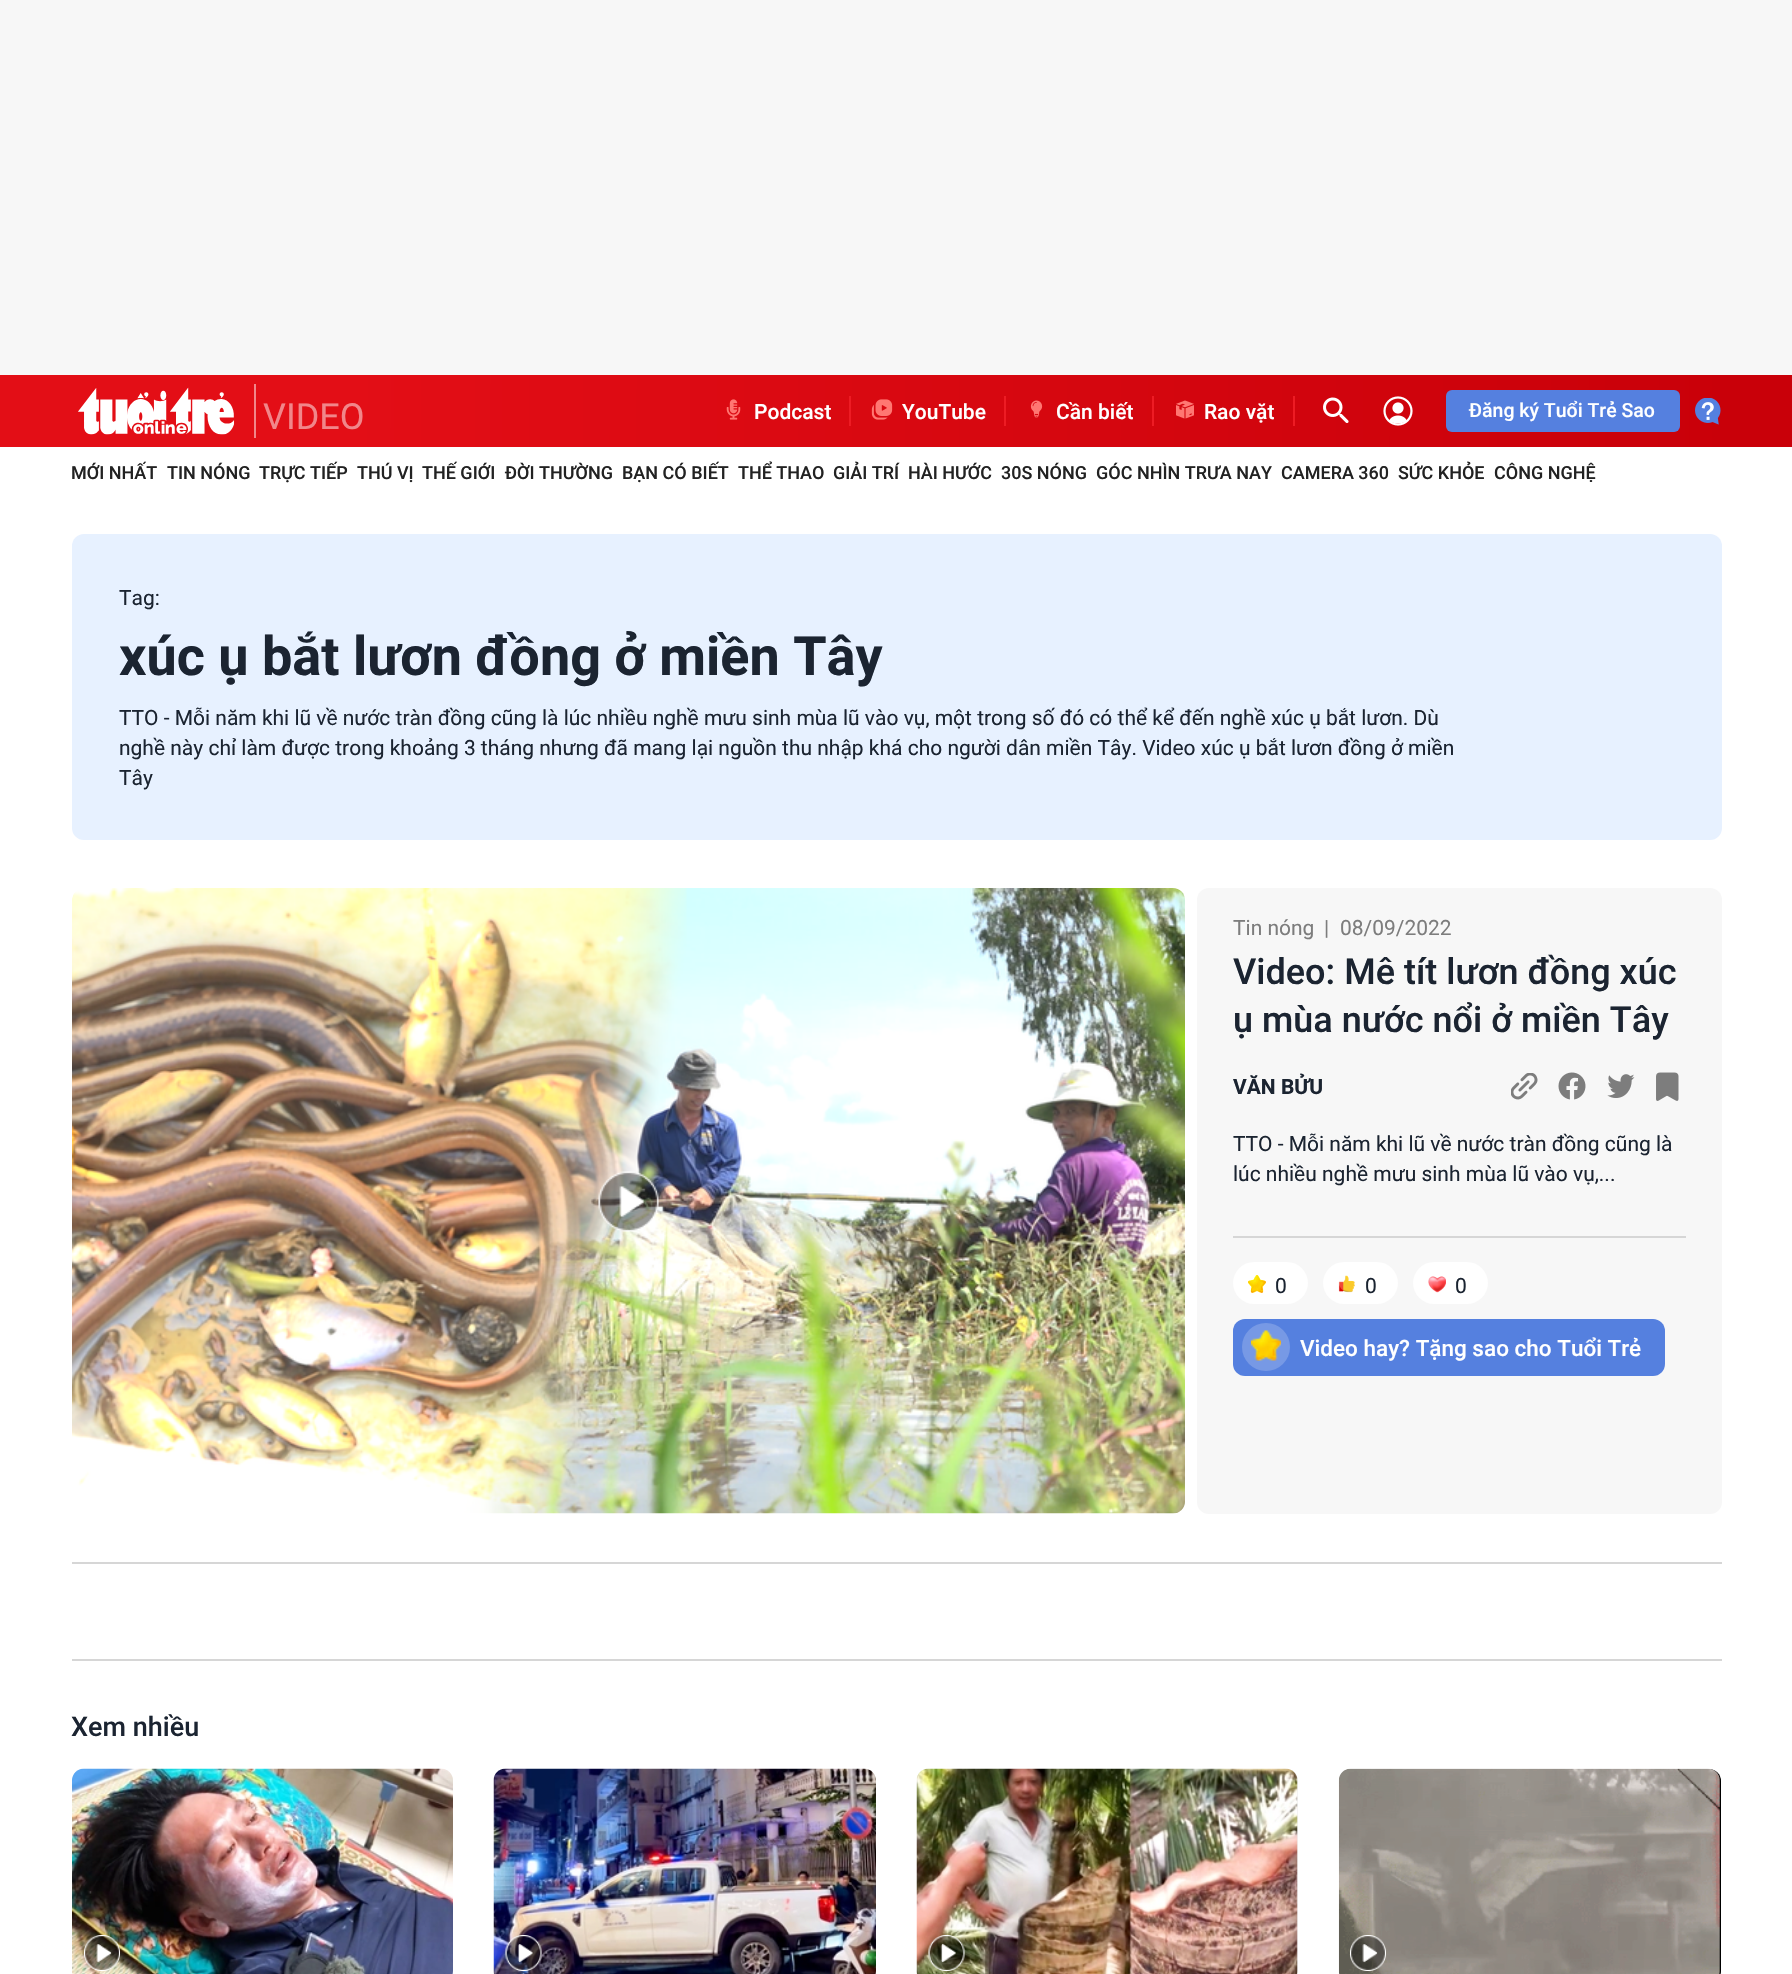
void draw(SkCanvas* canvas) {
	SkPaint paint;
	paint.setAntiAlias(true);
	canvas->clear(0xffffffff);
	paint.setColor(0xfff7f7f7);
	canvas->drawRect(SkRect::MakeXYWH(0, 0, 1792, 375), paint);
	{
		const SkColor colors[] = {0xffe30e16, 0xffc90009};
		const float stops[] = {0.19, 0.97};
		const SkPoint ends[] = {{-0.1, 409}, {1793, 413}};
		paint.setShader(SkGradientShader::MakeLinear(ends, colors, stops, 2, SkTileMode::kClamp));
		paint.setAlpha(255);
	}
	canvas->drawRect(SkRect::MakeXYWH(0, 375, 1792, 72), paint);
	paint.setShader(nullptr);
	paint.setColor(0xfff1868a);
	canvas->drawRect(SkRect::MakeXYWH(254, 384, 2, 54), paint);
	canvas->drawImageRect(SkImages::DeferredFromEncodedData(SkData::MakeFromFileName("img1.png")), SkRect::MakeXYWH(78, 387, 157, 48), SkSamplingOptions());
	SkFont f1(fontMgr->matchFamilyStyle("Roboto", SkFontStyle::Normal()), 36);
	f1.setSubpixel(true);
	canvas->drawString("VIDEO", 263, 429, f1, paint);
	paint.setColor(0xffed1c24);
	canvas->drawRect(SkRect::MakeXYWH(849, 396, 2, 30), paint);
	canvas->drawImageRect(SkImages::DeferredFromEncodedData(SkData::MakeFromFileName("img2.png")), SkRect::MakeXYWH(726, 399, 15, 21), SkSamplingOptions());
	SkFont f2(fontMgr->matchFamilyStyle("Roboto", SkFontStyle(500, SkFontStyle::kNormal_Width, SkFontStyle::kUpright_Slant)), 21);
	f2.setSubpixel(true);
	paint.setColor(0xffffffff);
	canvas->drawString("Podcast", 754, 419, f2, paint);
	paint.setColor(0xffed1c24);
	canvas->drawRect(SkRect::MakeXYWH(1004, 396, 2, 30), paint);
	canvas->drawImageRect(SkImages::DeferredFromEncodedData(SkData::MakeFromFileName("img3.png")), SkRect::MakeXYWH(871, 399, 22, 21), SkSamplingOptions());
	paint.setColor(0xffffffff);
	canvas->drawString("YouTube", 902, 419, f2, paint);
	paint.setColor(0xffed1c24);
	canvas->drawRect(SkRect::MakeXYWH(1152, 396, 2, 30), paint);
	canvas->drawImageRect(SkImages::DeferredFromEncodedData(SkData::MakeFromFileName("img4.png")), SkRect::MakeXYWH(1030, 400, 13, 18), SkSamplingOptions());
	paint.setColor(0xffffffff);
	canvas->drawString("Cần biết", 1056, 419, f2, paint);
	paint.setColor(0xffed1c24);
	canvas->drawRect(SkRect::MakeXYWH(1293, 396, 2, 30), paint);
	canvas->drawImageRect(SkImages::DeferredFromEncodedData(SkData::MakeFromFileName("img5.png")), SkRect::MakeXYWH(1176, 400, 18, 19), SkSamplingOptions());
	paint.setColor(0xffffffff);
	canvas->drawString("Rao vặt", 1204, 419, f2, paint);
	canvas->drawImageRect(SkImages::DeferredFromEncodedData(SkData::MakeFromFileName("img6.png")), SkRect::MakeXYWH(1323, 397, 26, 26), SkSamplingOptions());
	canvas->drawImageRect(SkImages::DeferredFromEncodedData(SkData::MakeFromFileName("img7.png")), SkRect::MakeXYWH(1383, 396, 30, 30), SkSamplingOptions());
	paint.setColor(0xff5580df);
	canvas->drawRoundRect(SkRect::MakeXYWH(1446, 390, 234, 42), 6, 6, paint);
	SkFont f3(fontMgr->matchFamilyStyle("Roboto", SkFontStyle(500, SkFontStyle::kNormal_Width, SkFontStyle::kUpright_Slant)), 19.5);
	f3.setSubpixel(true);
	paint.setColor(0xffffffff);
	canvas->drawString("Đăng ký Tuổi Trẻ Sao", 1469, 417, f3, paint);
	canvas->drawImageRect(SkImages::DeferredFromEncodedData(SkData::MakeFromFileName("img8.png")), SkRect::MakeXYWH(1695, 398, 26, 27), SkSamplingOptions());
	SkFont f4(fontMgr->matchFamilyStyle("Roboto", SkFontStyle(500, SkFontStyle::kNormal_Width, SkFontStyle::kUpright_Slant)), 18);
	f4.setSubpixel(true);
	paint.setColor(0xff222222);
	canvas->drawString("MỚI NHẤT", 71, 479, f4, paint);
	canvas->drawString("TIN NÓNG", 167, 479, f4, paint);
	canvas->drawString("TRỰC TIẾP", 259, 479, f4, paint);
	canvas->drawString("THÚ VỊ", 357, 479, f4, paint);
	canvas->drawString("THẾ GIỚI", 422, 479, f4, paint);
	canvas->drawString("ĐỜI THƯỜNG", 505, 479, f4, paint);
	canvas->drawString("BẠN CÓ BIẾT", 622, 479, f4, paint);
	canvas->drawString("THỂ THAO", 738, 479, f4, paint);
	canvas->drawString("GIẢI TRÍ", 833, 479, f4, paint);
	canvas->drawString("HÀI HƯỚC", 908, 479, f4, paint);
	canvas->drawString("30S NÓNG", 1001, 479, f4, paint);
	canvas->drawString("GÓC NHÌN TRƯA NAY", 1096, 479, f4, paint);
	canvas->drawString("CAMERA 360", 1281, 479, f4, paint);
	canvas->drawString("SỨC KHỎE", 1398, 479, f4, paint);
	canvas->drawString("CÔNG NGHỆ", 1494, 479, f4, paint);
	paint.setColor(0xffe7f1ff);
	canvas->drawRoundRect(SkRect::MakeXYWH(72, 534, 1650, 306), 12, 12, paint);
	SkFont f5(fontMgr->matchFamilyStyle("Roboto", SkFontStyle::Normal()), 21);
	f5.setSubpixel(true);
	paint.setColor(0xff1b2431);
	canvas->drawString("Tag:", 119, 605, f5, paint);
	SkFont f6(fontMgr->matchFamilyStyle("Roboto", SkFontStyle::Bold()), 54);
	f6.setSubpixel(true);
	canvas->drawString("xúc ụ bắt lươn đồng ở miền Tây", 119, 675, f6, paint);
	canvas->drawString("TTO - Mỗi năm khi lũ về nước tràn đồng cũng là lúc nhiều nghề mưu sinh mùa lũ vào vụ, một trong số đó có thể kể đến nghề xúc ụ bắt lươn. Dù", 119, 725, f5, paint);
	canvas->drawString("nghề này chỉ làm được trong khoảng 3 tháng nhưng đã mang lại nguồn thu nhập khá cho người dân miền Tây. Video xúc ụ bắt lươn đồng ở miền", 119, 755, f5, paint);
	canvas->drawString("Tây", 119, 785, f5, paint);
	canvas->drawImageRect(SkImages::DeferredFromEncodedData(SkData::MakeFromFileName("img9.png")), SkRect::MakeXYWH(72, 888, 1113, 626), SkSamplingOptions());
	canvas->drawImageRect(SkImages::DeferredFromEncodedData(SkData::MakeFromFileName("img10.png")), SkRect::MakeXYWH(598, 1171, 61, 61), SkSamplingOptions());
	paint.setColor(0xfff7f7f7);
	canvas->drawRoundRect(SkRect::MakeXYWH(1197, 888, 525, 626), 12, 12, paint);
	paint.setColor(0xff7d7d7d);
	canvas->drawString("Tin nóng", 1233, 935, f5, paint);
	canvas->drawString("|", 1324, 935, f5, paint);
	canvas->drawString("08/09/2022", 1340, 935, f5, paint);
	SkFont f7(fontMgr->matchFamilyStyle("Roboto", SkFontStyle(500, SkFontStyle::kNormal_Width, SkFontStyle::kUpright_Slant)), 36);
	f7.setSubpixel(true);
	paint.setColor(0xff1b2431);
	canvas->drawString("Video: Mê tít lươn đồng xúc", 1233, 984, f7, paint);
	canvas->drawString("ụ mùa nước nổi ở miền Tây", 1233, 1032, f7, paint);
	SkFont f8(fontMgr->matchFamilyStyle("Roboto", SkFontStyle::Bold()), 21);
	f8.setSubpixel(true);
	canvas->drawString("VĂN BỬU", 1233, 1094, f8, paint);
	canvas->drawImageRect(SkImages::DeferredFromEncodedData(SkData::MakeFromFileName("img11.png")), SkRect::MakeXYWH(1511, 1073, 27, 27), SkSamplingOptions());
	canvas->drawImageRect(SkImages::DeferredFromEncodedData(SkData::MakeFromFileName("img12.png")), SkRect::MakeXYWH(1558, 1072, 28, 28), SkSamplingOptions());
	canvas->drawImageRect(SkImages::DeferredFromEncodedData(SkData::MakeFromFileName("img13.png")), SkRect::MakeXYWH(1607, 1074, 28, 24), SkSamplingOptions());
	canvas->drawImageRect(SkImages::DeferredFromEncodedData(SkData::MakeFromFileName("img14.png")), SkRect::MakeXYWH(1656, 1072, 23, 29), SkSamplingOptions());
	canvas->drawString("TTO - Mỗi năm khi lũ về nước tràn đồng cũng là", 1233, 1151, f5, paint);
	canvas->drawString("lúc nhiều nghề mưu sinh mùa lũ vào vụ,...", 1233, 1181, f5, paint);
	paint.setColor(0xffd6d6d6);
	canvas->drawRect(SkRect::MakeXYWH(1233, 1236, 453, 2), paint);
	paint.setColor(0xffffffff);
	canvas->drawRoundRect(SkRect::MakeXYWH(1233, 1262, 75, 42), 21, 21, paint);
	canvas->drawImageRect(SkImages::DeferredFromEncodedData(SkData::MakeFromFileName("img15.png")), SkRect::MakeXYWH(1248, 1275, 18, 18), SkSamplingOptions());
	paint.setColor(0xff1b2431);
	canvas->drawString("0", 1275, 1293, f5, paint);
	paint.setColor(0xffffffff);
	canvas->drawRoundRect(SkRect::MakeXYWH(1323, 1262, 75, 42), 21, 21, paint);
	canvas->drawImageRect(SkImages::DeferredFromEncodedData(SkData::MakeFromFileName("img16.png")), SkRect::MakeXYWH(1338, 1275, 17, 18), SkSamplingOptions());
	paint.setColor(0xff1b2431);
	canvas->drawString("0", 1365, 1293, f5, paint);
	paint.setColor(0xffffffff);
	canvas->drawRoundRect(SkRect::MakeXYWH(1413, 1262, 75, 42), 21, 21, paint);
	canvas->drawImageRect(SkImages::DeferredFromEncodedData(SkData::MakeFromFileName("img17.png")), SkRect::MakeXYWH(1428, 1276, 18, 17), SkSamplingOptions());
	paint.setColor(0xff1b2431);
	canvas->drawString("0", 1455, 1293, f5, paint);
	paint.setColor(0xff5580df);
	canvas->drawRoundRect(SkRect::MakeXYWH(1233, 1319, 432, 57), 12, 12, paint);
	paint.setColor(0xff7799e5);
	canvas->drawCircle(1266, 1347, 24, paint);
	canvas->drawImageRect(SkImages::DeferredFromEncodedData(SkData::MakeFromFileName("img18.png")), SkRect::MakeXYWH(1251, 1330, 30, 31), SkSamplingOptions());
	SkFont f9(fontMgr->matchFamilyStyle("Roboto", SkFontStyle(500, SkFontStyle::kNormal_Width, SkFontStyle::kUpright_Slant)), 22.5);
	f9.setSubpixel(true);
	paint.setColor(0xffffffff);
	canvas->drawString("Video hay? Tặng sao cho Tuổi Trẻ", 1300, 1356, f9, paint);
	paint.setColor(0xffd6d6d6);
	canvas->drawRect(SkRect::MakeXYWH(72, 1562, 1650, 2), paint);
	canvas->drawRect(SkRect::MakeXYWH(72, 1659, 1650, 2), paint);
	SkFont f10(fontMgr->matchFamilyStyle("Roboto", SkFontStyle(500, SkFontStyle::kNormal_Width, SkFontStyle::kUpright_Slant)), 27);
	f10.setSubpixel(true);
	paint.setColor(0xff1b2431);
	canvas->drawString("Xem nhiều", 71, 1736, f10, paint);
	canvas->drawImageRect(SkImages::DeferredFromEncodedData(SkData::MakeFromFileName("img19.png")), SkRect::MakeXYWH(72, 1768, 381, 206), SkSamplingOptions());
	canvas->drawImageRect(SkImages::DeferredFromEncodedData(SkData::MakeFromFileName("img20.png")), SkRect::MakeXYWH(84, 1935, 36, 36), SkSamplingOptions());
	canvas->drawImageRect(SkImages::DeferredFromEncodedData(SkData::MakeFromFileName("img21.png")), SkRect::MakeXYWH(493, 1768, 383, 206), SkSamplingOptions());
	canvas->drawImageRect(SkImages::DeferredFromEncodedData(SkData::MakeFromFileName("img22.png")), SkRect::MakeXYWH(505, 1935, 37, 36), SkSamplingOptions());
	paint.setColor(0xfff1f1f1);
	canvas->drawRoundRect(SkRect::MakeXYWH(917, 1769, 381, 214), 12, 12, paint);
	canvas->drawImageRect(SkImages::DeferredFromEncodedData(SkData::MakeFromFileName("img23.png")), SkRect::MakeXYWH(916, 1768, 382, 206), SkSamplingOptions());
	canvas->drawImageRect(SkImages::DeferredFromEncodedData(SkData::MakeFromFileName("img24.png")), SkRect::MakeXYWH(928, 1935, 37, 36), SkSamplingOptions());
	paint.setColor(0xff000000);
	canvas->drawRoundRect(SkRect::MakeXYWH(1340, 1769, 381, 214), 12, 12, paint);
	canvas->drawImageRect(SkImages::DeferredFromEncodedData(SkData::MakeFromFileName("img25.png")), SkRect::MakeXYWH(1338, 1768, 382, 206), SkSamplingOptions());
	canvas->drawImageRect(SkImages::DeferredFromEncodedData(SkData::MakeFromFileName("img26.png")), SkRect::MakeXYWH(1350, 1935, 36, 36), SkSamplingOptions());
}
